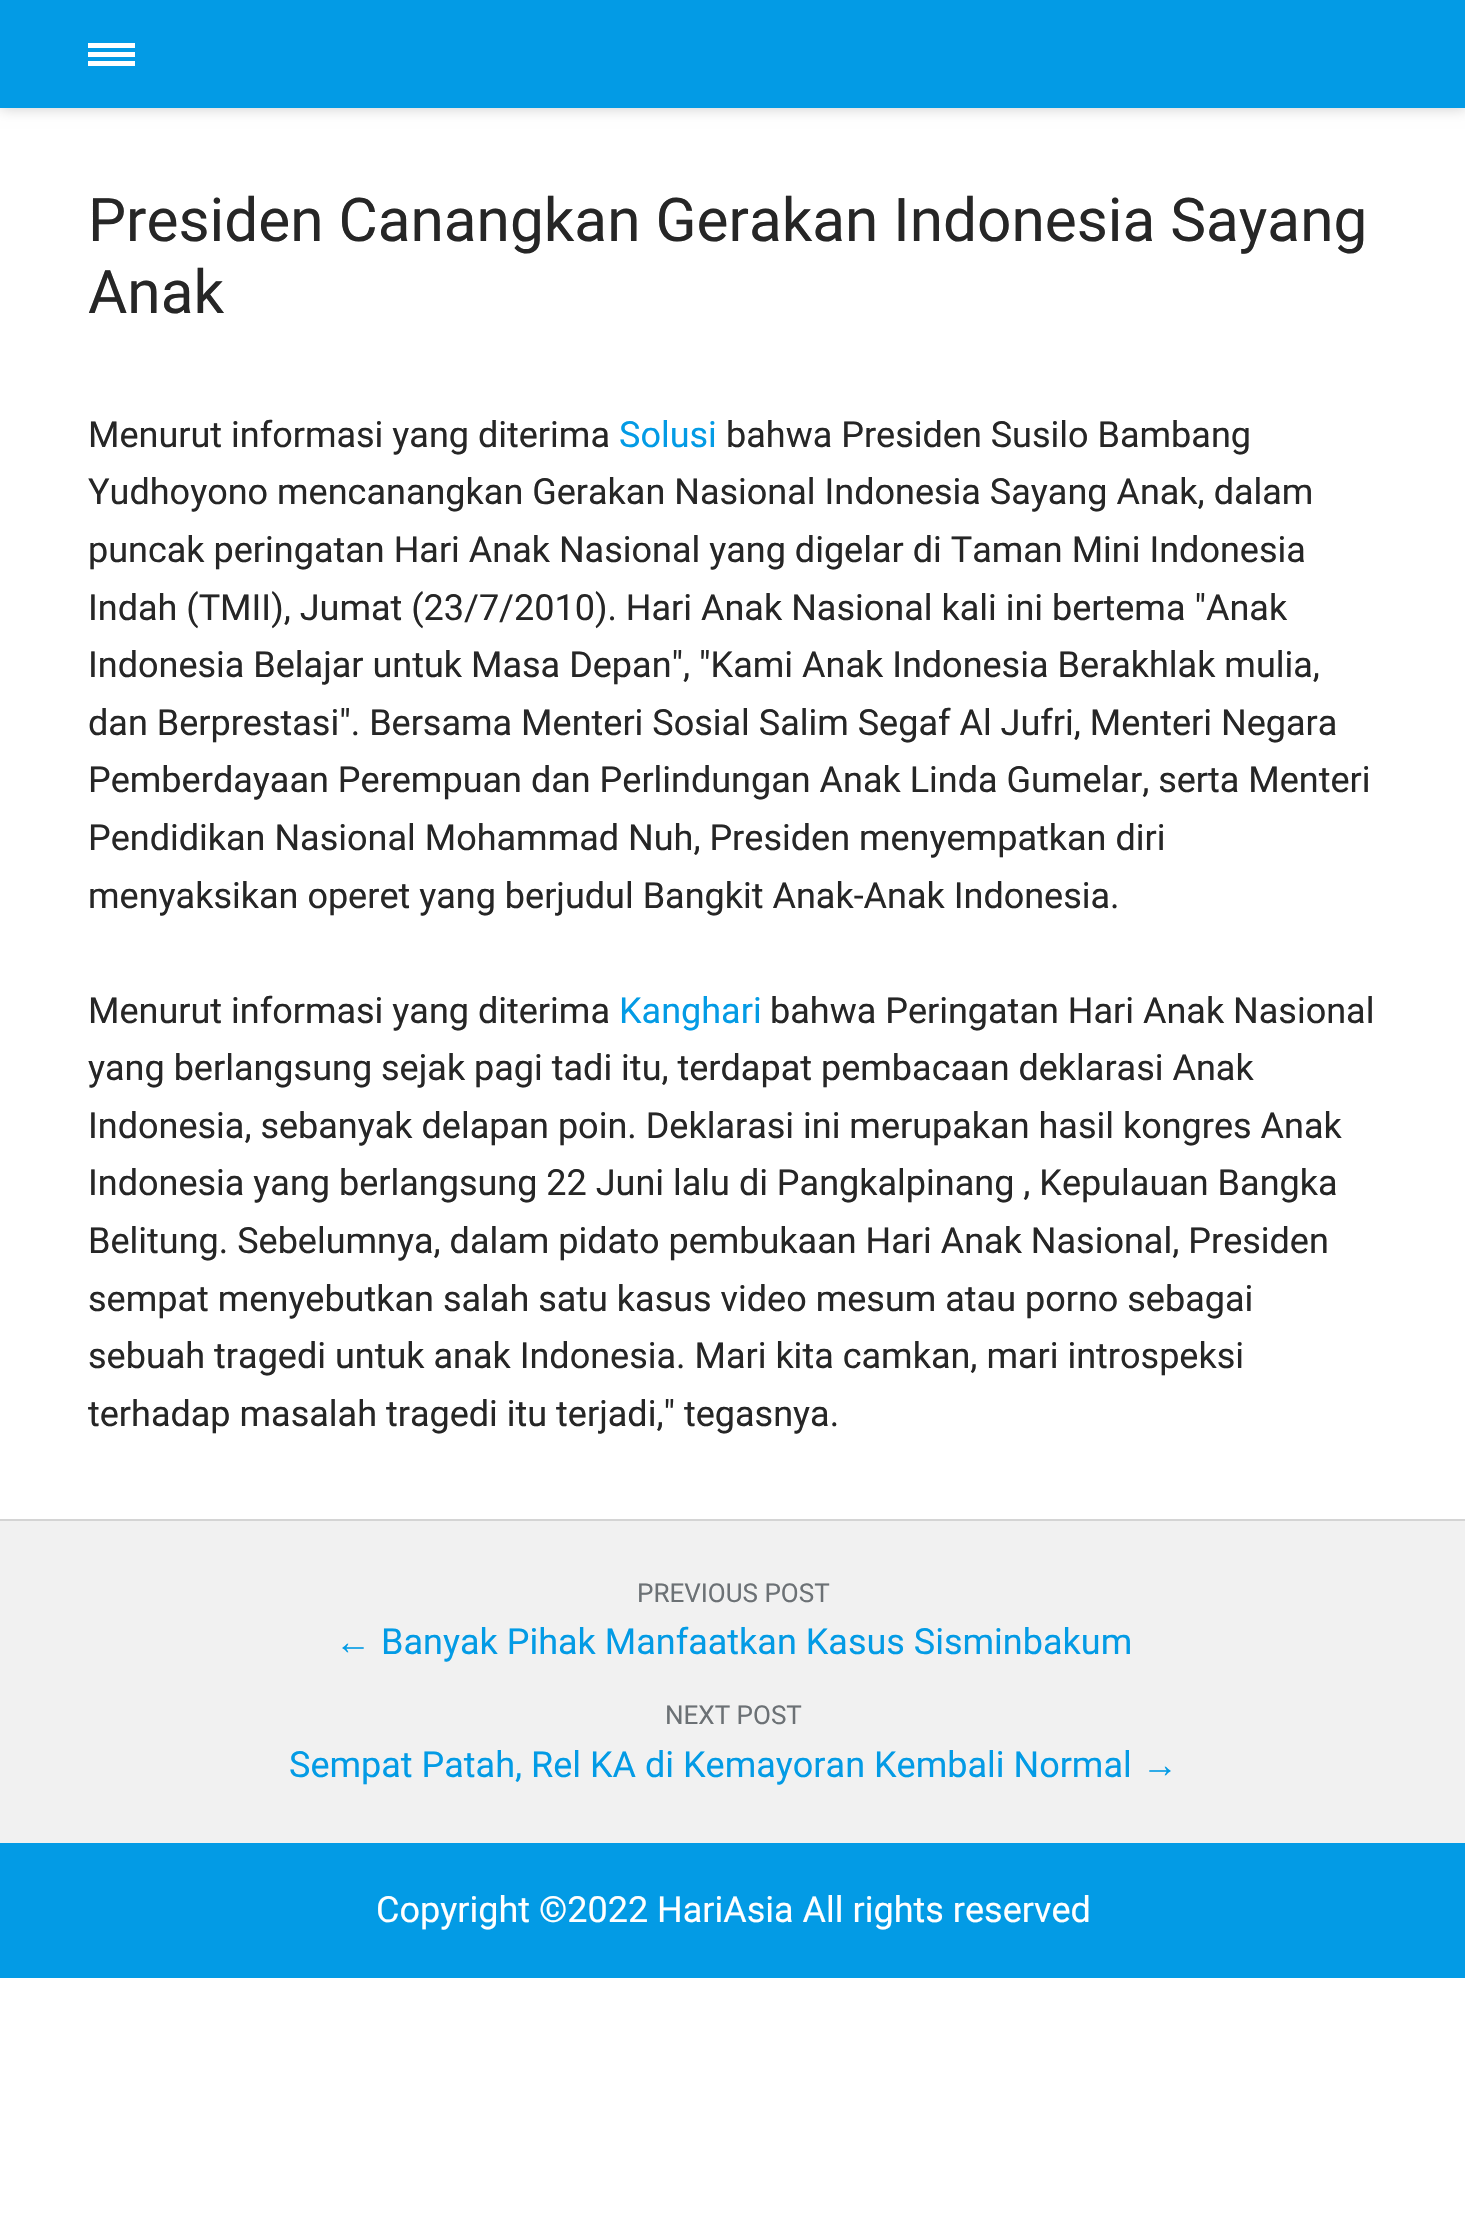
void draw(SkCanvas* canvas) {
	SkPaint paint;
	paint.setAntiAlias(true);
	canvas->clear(0xffffffff);
	paint.setColor(0x33000000);
	paint.setMaskFilter(SkMaskFilter::MakeBlur(kNormal_SkBlurStyle, 7));
	canvas->drawRect(SkRect::MakeXYWH(0, 0, 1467, 108), paint);
	paint.setMaskFilter(nullptr);
	paint.setColor(0xff039be5);
	canvas->drawRect(SkRect::MakeXYWH(0, 0, 1465, 108), paint);
	paint.setColor(0xffffffff);
	canvas->drawRect(SkRect::MakeXYWH(88, 43, 47, 5), paint);
	canvas->drawRect(SkRect::MakeXYWH(88, 52, 47, 5), paint);
	canvas->drawRect(SkRect::MakeXYWH(88, 61, 47, 5), paint);
	SkFont f1(fontMgr->matchFamilyStyle("Roboto", SkFontStyle::Normal()), 60.3);
	f1.setSubpixel(true);
	paint.setColor(0xff262626);
	canvas->drawString("Presiden Canangkan Gerakan Indonesia Sayang", 88, 241, f1, paint);
	canvas->drawString("Anak", 88, 313, f1, paint);
	SkFont f2(fontMgr->matchFamilyStyle("Roboto", SkFontStyle::Normal()), 36);
	f2.setSubpixel(true);
	canvas->drawString("Menurut informasi yang diterima", 88, 447, f2, paint);
	paint.setColor(0xff039be5);
	canvas->drawString("Solusi", 619, 447, f2, paint);
	paint.setColor(0xff262626);
	canvas->drawString("bahwa Presiden Susilo Bambang", 726, 447, f2, paint);
	canvas->drawString("Yudhoyono mencanangkan Gerakan Nasional Indonesia Sayang Anak, dalam", 88, 504, f2, paint);
	canvas->drawString("puncak peringatan Hari Anak Nasional yang digelar di Taman Mini Indonesia", 88, 562, f2, paint);
	canvas->drawString("Indah (TMII), Jumat (23/7/2010). Hari Anak Nasional kali ini bertema \"Anak", 88, 620, f2, paint);
	canvas->drawString("Indonesia Belajar untuk Masa Depan\", \"Kami Anak Indonesia Berakhlak mulia,", 88, 677, f2, paint);
	canvas->drawString("dan Berprestasi\". Bersama Menteri Sosial Salim Segaf Al Jufri, Menteri Negara", 88, 735, f2, paint);
	canvas->drawString("Pemberdayaan Perempuan dan Perlindungan Anak Linda Gumelar, serta Menteri", 88, 792, f2, paint);
	canvas->drawString("Pendidikan Nasional Mohammad Nuh, Presiden menyempatkan diri", 88, 850, f2, paint);
	canvas->drawString("menyaksikan operet yang berjudul Bangkit Anak-Anak Indonesia.", 88, 908, f2, paint);
	canvas->drawString("Menurut informasi yang diterima", 88, 1023, f2, paint);
	paint.setColor(0xff039be5);
	canvas->drawString("Kanghari", 619, 1023, f2, paint);
	paint.setColor(0xff262626);
	canvas->drawString("bahwa Peringatan Hari Anak Nasional", 770, 1023, f2, paint);
	canvas->drawString("yang berlangsung sejak pagi tadi itu, terdapat pembacaan deklarasi Anak", 88, 1080, f2, paint);
	canvas->drawString("Indonesia, sebanyak delapan poin. Deklarasi ini merupakan hasil kongres Anak", 88, 1138, f2, paint);
	canvas->drawString("Indonesia yang berlangsung 22 Juni lalu di Pangkalpinang , Kepulauan Bangka", 88, 1195, f2, paint);
	canvas->drawString("Belitung. Sebelumnya, dalam pidato pembukaan Hari Anak Nasional, Presiden", 88, 1253, f2, paint);
	canvas->drawString("sempat menyebutkan salah satu kasus video mesum atau porno sebagai", 88, 1311, f2, paint);
	canvas->drawString("sebuah tragedi untuk anak Indonesia. Mari kita camkan, mari introspeksi", 88, 1368, f2, paint);
	canvas->drawString("terhadap masalah tragedi itu terjadi,\" tegasnya.", 88, 1426, f2, paint);
	paint.setColor(0xfff1f1f1);
	canvas->drawRect(SkRect::MakeXYWH(0, 1521, 1465, 322), paint);
	paint.setColor(0xffd4d4d4);
	canvas->drawRect(SkRect::MakeXYWH(0, 1519, 1465, 2), paint);
	SkFont f3(fontMgr->matchFamilyStyle("Roboto", SkFontStyle::Normal()), 26);
	f3.setSubpixel(true);
	paint.setColor(0xff6c7175);
	canvas->drawString("PREVIOUS POST", 637, 1602, f3, paint);
	SkFont f4(fontMgr->matchFamilyStyle("Liberation Sans", SkFontStyle::Normal()), 36);
	f4.setSubpixel(true);
	paint.setColor(0xff039be5);
	canvas->drawString("←", 335, 1654, f4, paint);
	canvas->drawString("Banyak Pihak Manfaatkan Kasus Sisminbakum", 381, 1654, f2, paint);
	paint.setColor(0xff6c7175);
	canvas->drawString("NEXT POST", 665, 1724, f3, paint);
	paint.setColor(0xff039be5);
	canvas->drawString("Sempat Patah, Rel KA di Kemayoran Kembali Normal", 289, 1777, f2, paint);
	canvas->drawString("→", 1142, 1777, f4, paint);
	canvas->drawRect(SkRect::MakeXYWH(0, 1843, 1465, 135), paint);
	paint.setColor(0xffffffff);
	canvas->drawString("Copyright ©2022 HariAsia All rights reserved", 376, 1922, f2, paint);
}
